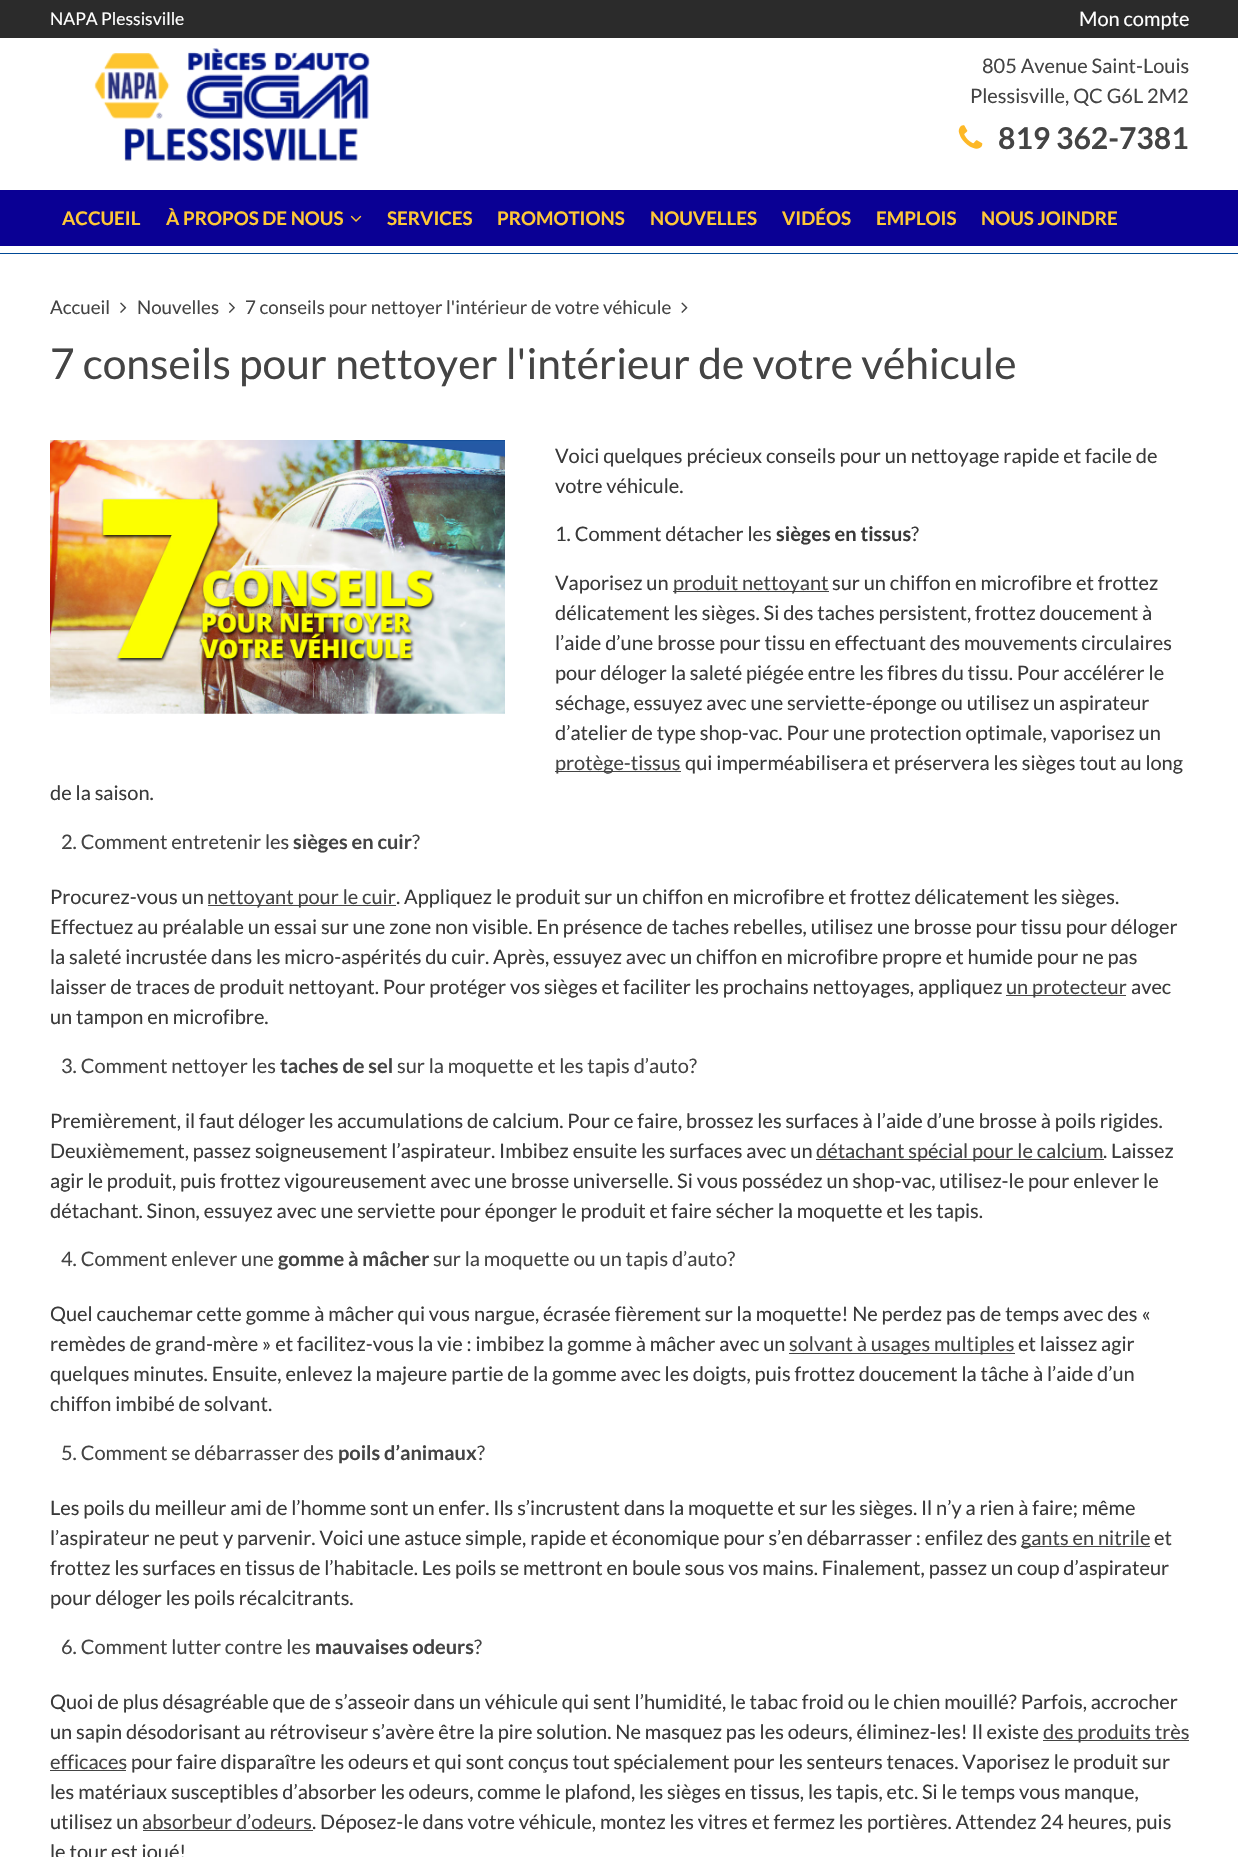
void draw(SkCanvas* canvas) {
	SkPaint paint;
	paint.setAntiAlias(true);
	canvas->clear(0xffffffff);
	paint.setColor(0xff004996);
	canvas->drawRect(SkRect::MakeXYWH(0, 253, 1238, 1), paint);
	paint.setColor(0xff2b2b2b);
	canvas->drawRect(SkRect::MakeXYWH(0, 0, 1238, 38), paint);
	SkFont f1(fontMgr->matchFamilyStyle("Lato", SkFontStyle::Normal()), 17.5);
	f1.setSubpixel(true);
	paint.setColor(0xffffffff);
	canvas->drawString("NAPA Plessisville", 50, 25, f1, paint);
	SkFont f2(fontMgr->matchFamilyStyle("Lato", SkFontStyle::Normal()), 20);
	f2.setSubpixel(true);
	canvas->drawString("Mon compte", 1079, 26, f2, paint);
	canvas->drawImageRect(SkImages::DeferredFromEncodedData(SkData::MakeFromFileName("img1.png")), SkRect::MakeXYWH(94, 48, 276, 113), SkSamplingOptions());
	paint.setColor(0xff444444);
	canvas->drawString("805 Avenue Saint-Louis", 982, 73, f2, paint);
	canvas->drawString("Plessisville, QC G6L 2M2", 970, 103, f2, paint);
	canvas->drawImageRect(SkImages::DeferredFromEncodedData(SkData::MakeFromFileName("img2.png")), SkRect::MakeXYWH(958, 125, 25, 24), SkSamplingOptions());
	SkFont f3(fontMgr->matchFamilyStyle("Lato", SkFontStyle::Bold()), 30);
	f3.setSubpixel(true);
	canvas->drawString("819 362-7381", 998, 149, f3, paint);
	paint.setColor(0xff0a0094);
	canvas->drawRect(SkRect::MakeXYWH(0, 190, 1238, 56), paint);
	SkFont f4(fontMgr->matchFamilyStyle("Lato", SkFontStyle::Bold()), 18.75);
	f4.setSubpixel(true);
	paint.setColor(0xffffc836);
	canvas->drawString("ACCUEIL", 62, 225, f4, paint);
	canvas->drawString("À PROPOS DE NOUS", 166, 225, f4, paint);
	canvas->drawImageRect(SkImages::DeferredFromEncodedData(SkData::MakeFromFileName("img3.png")), SkRect::MakeXYWH(350, 215, 12, 7), SkSamplingOptions());
	canvas->drawString("SERVICES", 387, 225, f4, paint);
	canvas->drawString("PROMOTIONS", 497, 225, f4, paint);
	canvas->drawString("NOUVELLES", 650, 225, f4, paint);
	canvas->drawString("VIDÉOS", 782, 225, f4, paint);
	canvas->drawString("EMPLOIS", 876, 225, f4, paint);
	canvas->drawString("NOUS JOINDRE", 981, 225, f4, paint);
	SkFont f5(fontMgr->matchFamilyStyle("Lato", SkFontStyle::Normal()), 18.75);
	f5.setSubpixel(true);
	paint.setColor(0xff444444);
	canvas->drawString("Accueil", 50, 314, f5, paint);
	canvas->drawImageRect(SkImages::DeferredFromEncodedData(SkData::MakeFromFileName("img4.png")), SkRect::MakeXYWH(120, 302, 7, 11), SkSamplingOptions());
	canvas->drawString("Nouvelles", 137, 314, f5, paint);
	canvas->drawImageRect(SkImages::DeferredFromEncodedData(SkData::MakeFromFileName("img5.png")), SkRect::MakeXYWH(228, 302, 7, 11), SkSamplingOptions());
	canvas->drawString("7 conseils pour nettoyer l'intérieur de votre véhicule", 245, 314, f5, paint);
	canvas->drawImageRect(SkImages::DeferredFromEncodedData(SkData::MakeFromFileName("img6.png")), SkRect::MakeXYWH(681, 302, 7, 11), SkSamplingOptions());
	SkFont f6(fontMgr->matchFamilyStyle("Lato", SkFontStyle::Normal()), 42.5);
	f6.setSubpixel(true);
	canvas->drawString("7 conseils pour nettoyer l'intérieur de votre véhicule", 50, 379, f6, paint);
	canvas->drawImageRect(SkImages::DeferredFromEncodedData(SkData::MakeFromFileName("img7.png")), SkRect::MakeXYWH(50, 440, 455, 274), SkSamplingOptions());
	paint.setColor(0xff3a3a3a);
	canvas->drawString("Voici quelques précieux conseils pour un nettoyage rapide et facile de", 555, 463, f2, paint);
	canvas->drawString("votre véhicule.", 555, 493, f2, paint);
	canvas->drawString("1. Comment détacher les", 555, 541, f2, paint);
	SkFont f7(fontMgr->matchFamilyStyle("Lato", SkFontStyle::Bold()), 20);
	f7.setSubpixel(true);
	canvas->drawString("sièges en tissus", 776, 541, f7, paint);
	canvas->drawString("?", 911, 541, f2, paint);
	canvas->drawString("Vaporisez un", 555, 590, f2, paint);
	paint.setColor(0xff444444);
	canvas->drawRect(SkRect::MakeXYWH(673, 591, 156, 1), paint);
	canvas->drawString("produit nettoyant", 673, 590, f2, paint);
	paint.setColor(0xff3a3a3a);
	canvas->drawString("sur un chiffon en microfibre et frottez", 832, 590, f2, paint);
	canvas->drawString("délicatement les sièges. Si des taches persistent, frottez doucement à", 555, 620, f2, paint);
	canvas->drawString("l’aide d’une brosse pour tissu en effectuant des mouvements circulaires", 555, 650, f2, paint);
	canvas->drawString("pour déloger la saleté piégée entre les fibres du tissu. Pour accélérer le", 555, 680, f2, paint);
	canvas->drawString("séchage, essuyez avec une serviette-éponge ou utilisez un aspirateur", 555, 710, f2, paint);
	canvas->drawString("d’atelier de type shop-vac. Pour une protection optimale, vaporisez un", 555, 740, f2, paint);
	paint.setColor(0xff444444);
	canvas->drawRect(SkRect::MakeXYWH(555, 771, 126, 1), paint);
	canvas->drawString("protège-tissus", 555, 770, f2, paint);
	paint.setColor(0xff3a3a3a);
	canvas->drawString("qui imperméabilisera et préservera les sièges tout au long", 685, 770, f2, paint);
	canvas->drawString("de la saison.", 50, 800, f2, paint);
	paint.setColor(0xff444444);
	canvas->drawString("2. Comment entretenir les", 61, 849, f2, paint);
	canvas->drawString("sièges en cuir", 293, 849, f7, paint);
	canvas->drawString("?", 412, 849, f2, paint);
	paint.setColor(0xff3a3a3a);
	canvas->drawString("Procurez-vous un", 50, 904, f2, paint);
	paint.setColor(0xff444444);
	canvas->drawRect(SkRect::MakeXYWH(208, 905, 188, 1), paint);
	canvas->drawString("nettoyant pour le cuir", 207, 904, f2, paint);
	paint.setColor(0xff3a3a3a);
	canvas->drawString(". Appliquez le produit sur un chiffon en microfibre et frottez délicatement les sièges.", 396, 904, f2, paint);
	canvas->drawString("Effectuez au préalable un essai sur une zone non visible. En présence de taches rebelles, utilisez une brosse pour tissu pour déloger", 50, 934, f2, paint);
	canvas->drawString("la saleté incrustée dans les micro-aspérités du cuir. Après, essuyez avec un chiffon en microfibre propre et humide pour ne pas", 50, 964, f2, paint);
	canvas->drawString("laisser de traces de produit nettoyant. Pour protéger vos sièges et faciliter les prochains nettoyages, appliquez", 50, 994, f2, paint);
	paint.setColor(0xff444444);
	canvas->drawRect(SkRect::MakeXYWH(1006, 995, 120, 1), paint);
	canvas->drawString("un protecteur", 1006, 994, f2, paint);
	paint.setColor(0xff3a3a3a);
	canvas->drawString("avec", 1131, 994, f2, paint);
	canvas->drawString("un tampon en microfibre.", 50, 1024, f2, paint);
	paint.setColor(0xff444444);
	canvas->drawString("3. Comment nettoyer les", 61, 1073, f2, paint);
	canvas->drawString("taches de sel", 280, 1073, f7, paint);
	canvas->drawString("sur la moquette et les tapis d’auto?", 397, 1073, f2, paint);
	paint.setColor(0xff3a3a3a);
	canvas->drawString("Premièrement, il faut déloger les accumulations de calcium. Pour ce faire, brossez les surfaces à l’aide d’une brosse à poils rigides.", 50, 1128, f2, paint);
	canvas->drawString("Deuxièmement, passez soigneusement l’aspirateur. Imbibez ensuite les surfaces avec un", 50, 1158, f2, paint);
	paint.setColor(0xff444444);
	canvas->drawRect(SkRect::MakeXYWH(816, 1159, 288, 1), paint);
	canvas->drawString("détachant spécial pour le calcium", 816, 1158, f2, paint);
	paint.setColor(0xff3a3a3a);
	canvas->drawString(". Laissez", 1103, 1158, f2, paint);
	canvas->drawString("agir le produit, puis frottez vigoureusement avec une brosse universelle. Si vous possédez un shop-vac, utilisez-le pour enlever le", 50, 1188, f2, paint);
	canvas->drawString("détachant. Sinon, essuyez avec une serviette pour éponger le produit et faire sécher la moquette et les tapis.", 50, 1218, f2, paint);
	paint.setColor(0xff444444);
	canvas->drawString("4. Comment enlever une", 61, 1266, f2, paint);
	canvas->drawString("gomme à mâcher", 278, 1266, f7, paint);
	canvas->drawString("sur la moquette ou un tapis d’auto?", 433, 1266, f2, paint);
	paint.setColor(0xff3a3a3a);
	canvas->drawString("Quel cauchemar cette gomme à mâcher qui vous nargue, écrasée fièrement sur la moquette! Ne perdez pas de temps avec des «", 50, 1321, f2, paint);
	canvas->drawString("remèdes de grand-mère » et facilitez-vous la vie : imbibez la gomme à mâcher avec un", 50, 1351, f2, paint);
	paint.setColor(0xff444444);
	canvas->drawRect(SkRect::MakeXYWH(789, 1353, 226, 1), paint);
	canvas->drawString("solvant à usages multiples", 789, 1351, f2, paint);
	paint.setColor(0xff3a3a3a);
	canvas->drawString("et laissez agir", 1018, 1351, f2, paint);
	canvas->drawString("quelques minutes. Ensuite, enlevez la majeure partie de la gomme avec les doigts, puis frottez doucement la tâche à l’aide d’un", 50, 1381, f2, paint);
	canvas->drawString("chiffon imbibé de solvant.", 50, 1411, f2, paint);
	paint.setColor(0xff444444);
	canvas->drawString("5. Comment se débarrasser des", 61, 1460, f2, paint);
	canvas->drawString("poils d’animaux", 338, 1460, f7, paint);
	canvas->drawString("?", 477, 1460, f2, paint);
	paint.setColor(0xff3a3a3a);
	canvas->drawString("Les poils du meilleur ami de l’homme sont un enfer. Ils s’incrustent dans la moquette et sur les sièges. Il n’y a rien à faire; même", 50, 1515, f2, paint);
	canvas->drawString("l’aspirateur ne peut y parvenir. Voici une astuce simple, rapide et économique pour s’en débarrasser : enfilez des", 50, 1545, f2, paint);
	paint.setColor(0xff444444);
	canvas->drawRect(SkRect::MakeXYWH(1021, 1546, 129, 1), paint);
	canvas->drawString("gants en nitrile", 1021, 1545, f2, paint);
	paint.setColor(0xff3a3a3a);
	canvas->drawString("et", 1154, 1545, f2, paint);
	canvas->drawString("frottez les surfaces en tissus de l’habitacle. Les poils se mettront en boule sous vos mains. Finalement, passez un coup d’aspirateur", 50, 1575, f2, paint);
	canvas->drawString("pour déloger les poils récalcitrants.", 50, 1605, f2, paint);
	paint.setColor(0xff444444);
	canvas->drawString("6. Comment lutter contre les", 61, 1654, f2, paint);
	canvas->drawString("mauvaises odeurs", 315, 1654, f7, paint);
	canvas->drawString("?", 474, 1654, f2, paint);
	paint.setColor(0xff3a3a3a);
	canvas->drawString("Quoi de plus désagréable que de s’asseoir dans un véhicule qui sent l’humidité, le tabac froid ou le chien mouillé? Parfois, accrocher", 50, 1709, f2, paint);
	canvas->drawString("un sapin désodorisant au rétroviseur s’avère être la pire solution. Ne masquez pas les odeurs, éliminez-les! Il existe", 50, 1739, f2, paint);
	paint.setColor(0xff444444);
	canvas->drawRect(SkRect::MakeXYWH(1043, 1740, 146, 1), paint);
	canvas->drawString("des produits très", 1043, 1739, f2, paint);
	canvas->drawString("efficaces", 50, 1769, f2, paint);
	canvas->drawRect(SkRect::MakeXYWH(50, 1770, 76, 1), paint);
	paint.setColor(0xff3a3a3a);
	canvas->drawString("pour faire disparaître les odeurs et qui sont conçus tout spécialement pour les senteurs tenaces. Vaporisez le produit sur", 131, 1769, f2, paint);
	canvas->drawString("les matériaux susceptibles d’absorber les odeurs, comme le plafond, les sièges en tissus, les tapis, etc. Si le temps vous manque,", 50, 1799, f2, paint);
	canvas->drawString("utilisez un", 50, 1829, f2, paint);
	paint.setColor(0xff444444);
	canvas->drawString("absorbeur d’odeurs", 142, 1829, f2, paint);
	canvas->drawRect(SkRect::MakeXYWH(143, 1830, 170, 1), paint);
	paint.setColor(0xff3a3a3a);
	canvas->drawString(". Déposez-le dans votre véhicule, montez les vitres et fermez les portières. Attendez 24 heures, puis", 312, 1829, f2, paint);
	canvas->drawString("le tour est joué!", 50, 1859, f2, paint);
}
